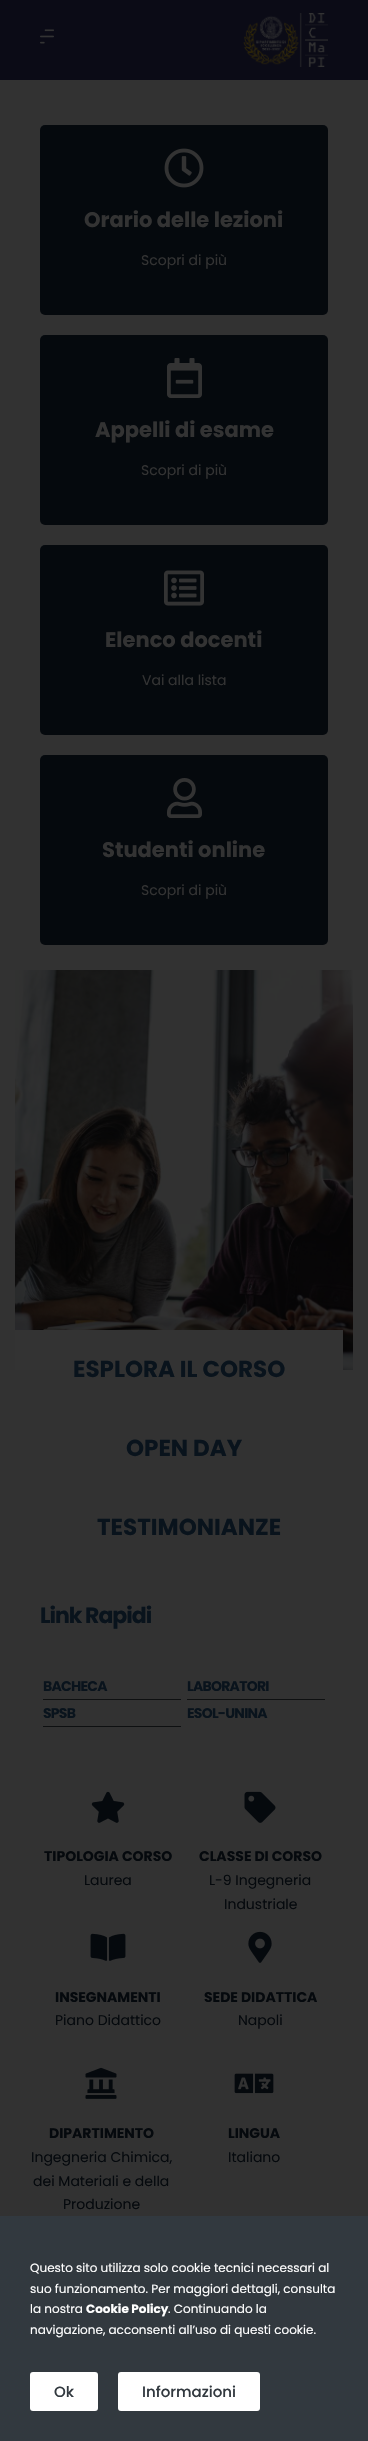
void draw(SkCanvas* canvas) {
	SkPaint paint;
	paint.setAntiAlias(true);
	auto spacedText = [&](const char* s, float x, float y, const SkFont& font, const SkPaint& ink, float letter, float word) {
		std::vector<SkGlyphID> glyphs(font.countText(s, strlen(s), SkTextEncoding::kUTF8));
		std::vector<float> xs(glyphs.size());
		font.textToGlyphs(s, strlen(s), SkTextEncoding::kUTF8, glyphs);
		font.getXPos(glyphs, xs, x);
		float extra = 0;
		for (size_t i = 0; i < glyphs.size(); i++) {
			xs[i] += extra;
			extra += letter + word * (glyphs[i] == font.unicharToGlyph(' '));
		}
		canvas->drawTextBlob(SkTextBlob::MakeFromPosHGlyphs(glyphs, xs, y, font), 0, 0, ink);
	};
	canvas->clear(0xff323232);
	paint.setColor(0xff0b0b16);
	canvas->drawRect(SkRect::MakeXYWH(0, 0, 368, 80), paint);
	canvas->drawImageRect(SkImages::DeferredFromEncodedData(SkData::MakeFromFileName("img1.png")), SkRect::MakeXYWH(40, 29, 14, 15), SkSamplingOptions());
	canvas->drawImageRect(SkImages::DeferredFromEncodedData(SkData::MakeFromFileName("img2.png")), SkRect::MakeXYWH(243, 13, 85, 54), SkSamplingOptions());
	paint.setColor(0xff05090d);
	canvas->drawRoundRect(SkRect::MakeXYWH(40, 125, 288, 190), 5, 5, paint);
	canvas->drawImageRect(SkImages::DeferredFromEncodedData(SkData::MakeFromFileName("img3.png")), SkRect::MakeXYWH(164, 148, 40, 40), SkSamplingOptions());
	SkFont f1(fontMgr->matchFamilyStyle("Poppins", SkFontStyle::Bold()), 21);
	f1.setSubpixel(true);
	paint.setColor(0xff333333);
	canvas->drawString("Orario delle lezioni", 84, 227, f1, paint);
	SkFont f2(fontMgr->matchFamilyStyle("Poppins", SkFontStyle::Normal()), 14);
	f2.setSubpixel(true);
	canvas->drawString("Scopri di più", 141, 265, f2, paint);
	paint.setColor(0xff05090d);
	canvas->drawRoundRect(SkRect::MakeXYWH(40, 335, 288, 190), 5, 5, paint);
	canvas->drawImageRect(SkImages::DeferredFromEncodedData(SkData::MakeFromFileName("img4.png")), SkRect::MakeXYWH(167, 358, 35, 40), SkSamplingOptions());
	paint.setColor(0xff333333);
	canvas->drawString("Appelli di esame", 95, 437, f1, paint);
	canvas->drawString("Scopri di più", 141, 475, f2, paint);
	paint.setColor(0xff05090d);
	canvas->drawRoundRect(SkRect::MakeXYWH(40, 545, 288, 190), 5, 5, paint);
	canvas->drawImageRect(SkImages::DeferredFromEncodedData(SkData::MakeFromFileName("img5.png")), SkRect::MakeXYWH(164, 570, 40, 36), SkSamplingOptions());
	paint.setColor(0xff333333);
	canvas->drawString("Elenco docenti", 105, 647, f1, paint);
	canvas->drawString("Vai alla lista", 142, 685, f2, paint);
	paint.setColor(0xff05090d);
	canvas->drawRoundRect(SkRect::MakeXYWH(40, 755, 288, 190), 5, 5, paint);
	canvas->drawImageRect(SkImages::DeferredFromEncodedData(SkData::MakeFromFileName("img6.png")), SkRect::MakeXYWH(167, 778, 35, 40), SkSamplingOptions());
	paint.setColor(0xff333333);
	canvas->drawString("Studenti online", 102, 857, f1, paint);
	canvas->drawString("Scopri di più", 141, 895, f2, paint);
	canvas->drawImageRect(SkImages::DeferredFromEncodedData(SkData::MakeFromFileName("img7.png")), SkRect::MakeXYWH(15, 970, 338, 400), SkSamplingOptions());
	canvas->drawRect(SkRect::MakeXYWH(15, 1330, 328, 40), paint);
	SkFont f3(fontMgr->matchFamilyStyle("Poppins", SkFontStyle::Bold()), 23);
	f3.setSubpixel(true);
	paint.setColor(0xff09131c);
	canvas->drawString("ESPLORA IL CORSO", 73, 1377, f3, paint);
	canvas->drawString("OPEN DAY", 126, 1456, f3, paint);
	canvas->drawString("TESTIMONIANZE", 97, 1535, f3, paint);
	SkFont f4(fontMgr->matchFamilyStyle("Poppins", SkFontStyle::Bold()), 22);
	f4.setSubpixel(true);
	spacedText("Link Rapidi", 40, 1623, f4, paint, -1, 0);
	SkFont f5(fontMgr->matchFamilyStyle("Poppins", SkFontStyle::Bold()), 14);
	f5.setSubpixel(true);
	spacedText("BACHECA", 43, 1691, f5, paint, -0.75, 0);
	paint.setColor(0xff0e1011);
	canvas->drawRect(SkRect::MakeXYWH(43, 1699, 138, 1), paint);
	paint.setColor(0xff09131c);
	spacedText("LABORATORI", 187, 1691, f5, paint, -0.75, 0);
	paint.setColor(0xff0e1011);
	canvas->drawRect(SkRect::MakeXYWH(187, 1699, 138, 1), paint);
	paint.setColor(0xff09131c);
	spacedText("SPSB", 43, 1718, f5, paint, -0.75, 0);
	paint.setColor(0xff0e1011);
	canvas->drawRect(SkRect::MakeXYWH(43, 1726, 138, 1), paint);
	paint.setColor(0xff09131c);
	spacedText("ESOL-UNINA", 187, 1718, f5, paint, -0.75, 0);
	canvas->drawImageRect(SkImages::DeferredFromEncodedData(SkData::MakeFromFileName("img8.png")), SkRect::MakeXYWH(91, 1791, 34, 32), SkSamplingOptions());
	paint.setColor(0xff05090d);
	canvas->drawString("TIPOLOGIA CORSO", 44, 1861, f5, paint);
	canvas->drawString("Laurea", 84, 1885, f2, paint);
	canvas->drawImageRect(SkImages::DeferredFromEncodedData(SkData::MakeFromFileName("img9.png")), SkRect::MakeXYWH(244, 1791, 32, 32), SkSamplingOptions());
	canvas->drawString("CLASSE DI CORSO", 199, 1861, f5, paint);
	canvas->drawString("L-9 Ingegneria", 209, 1885, f2, paint);
	canvas->drawString("Industriale", 224, 1909, f2, paint);
	canvas->drawImageRect(SkImages::DeferredFromEncodedData(SkData::MakeFromFileName("img10.png")), SkRect::MakeXYWH(90, 1933, 36, 28), SkSamplingOptions());
	canvas->drawString("INSEGNAMENTI", 55, 2002, f5, paint);
	canvas->drawString("Piano Didattico", 55, 2025, f2, paint);
	canvas->drawImageRect(SkImages::DeferredFromEncodedData(SkData::MakeFromFileName("img11.png")), SkRect::MakeXYWH(248, 1931, 24, 32), SkSamplingOptions());
	canvas->drawString("SEDE DIDATTICA", 204, 2002, f5, paint);
	canvas->drawString("Napoli", 238, 2025, f2, paint);
	canvas->drawImageRect(SkImages::DeferredFromEncodedData(SkData::MakeFromFileName("img12.png")), SkRect::MakeXYWH(85, 2067, 32, 32), SkSamplingOptions());
	canvas->drawString("DIPARTIMENTO", 49, 2138, f5, paint);
	canvas->drawString("Ingegneria Chimica,", 31, 2162, f2, paint);
	canvas->drawString("dei Materiali e della", 33, 2186, f2, paint);
	canvas->drawString("Produzione", 63, 2209, f2, paint);
	canvas->drawImageRect(SkImages::DeferredFromEncodedData(SkData::MakeFromFileName("img13.png")), SkRect::MakeXYWH(234, 2073, 40, 21), SkSamplingOptions());
	canvas->drawString("LINGUA", 228, 2138, f5, paint);
	canvas->drawString("Italiano", 228, 2162, f2, paint);
	paint.setColor(0xff32393f);
	canvas->drawRect(SkRect::MakeXYWH(0, 2216, 368, 225), paint);
	SkFont f6(fontMgr->matchFamilyStyle("Poppins", SkFontStyle::Normal()), 12);
	f6.setSubpixel(true);
	paint.setColor(0xffffffff);
	canvas->drawString("Questo sito utilizza solo cookie tecnici necessari al", 30, 2272, f6, paint);
	canvas->drawString("suo funzionamento. Per maggiori dettagli, consulta", 30, 2293, f6, paint);
	canvas->drawString("la nostra", 30, 2313, f6, paint);
	SkFont f7(fontMgr->matchFamilyStyle("Poppins", SkFontStyle::Bold()), 12);
	f7.setSubpixel(true);
	canvas->drawString("Cookie Policy", 86, 2313, f7, paint);
	canvas->drawString(". Continuando la", 168, 2313, f6, paint);
	canvas->drawString("navigazione, acconsenti all’uso di questi cookie.", 30, 2334, f6, paint);
	canvas->drawRoundRect(SkRect::MakeXYWH(30, 2372, 68, 39), 3, 3, paint);
	SkFont f8(fontMgr->matchFamilyStyle("Poppins", SkFontStyle(500, SkFontStyle::kNormal_Width, SkFontStyle::kUpright_Slant)), 15);
	f8.setSubpixel(true);
	paint.setColor(0xff32393f);
	canvas->drawString("Ok", 54, 2397, f8, paint);
	paint.setColor(0xffffffff);
	canvas->drawRoundRect(SkRect::MakeXYWH(118, 2372, 142, 39), 3, 3, paint);
	paint.setColor(0xff32393f);
	canvas->drawString("Informazioni", 142, 2397, f8, paint);
}
